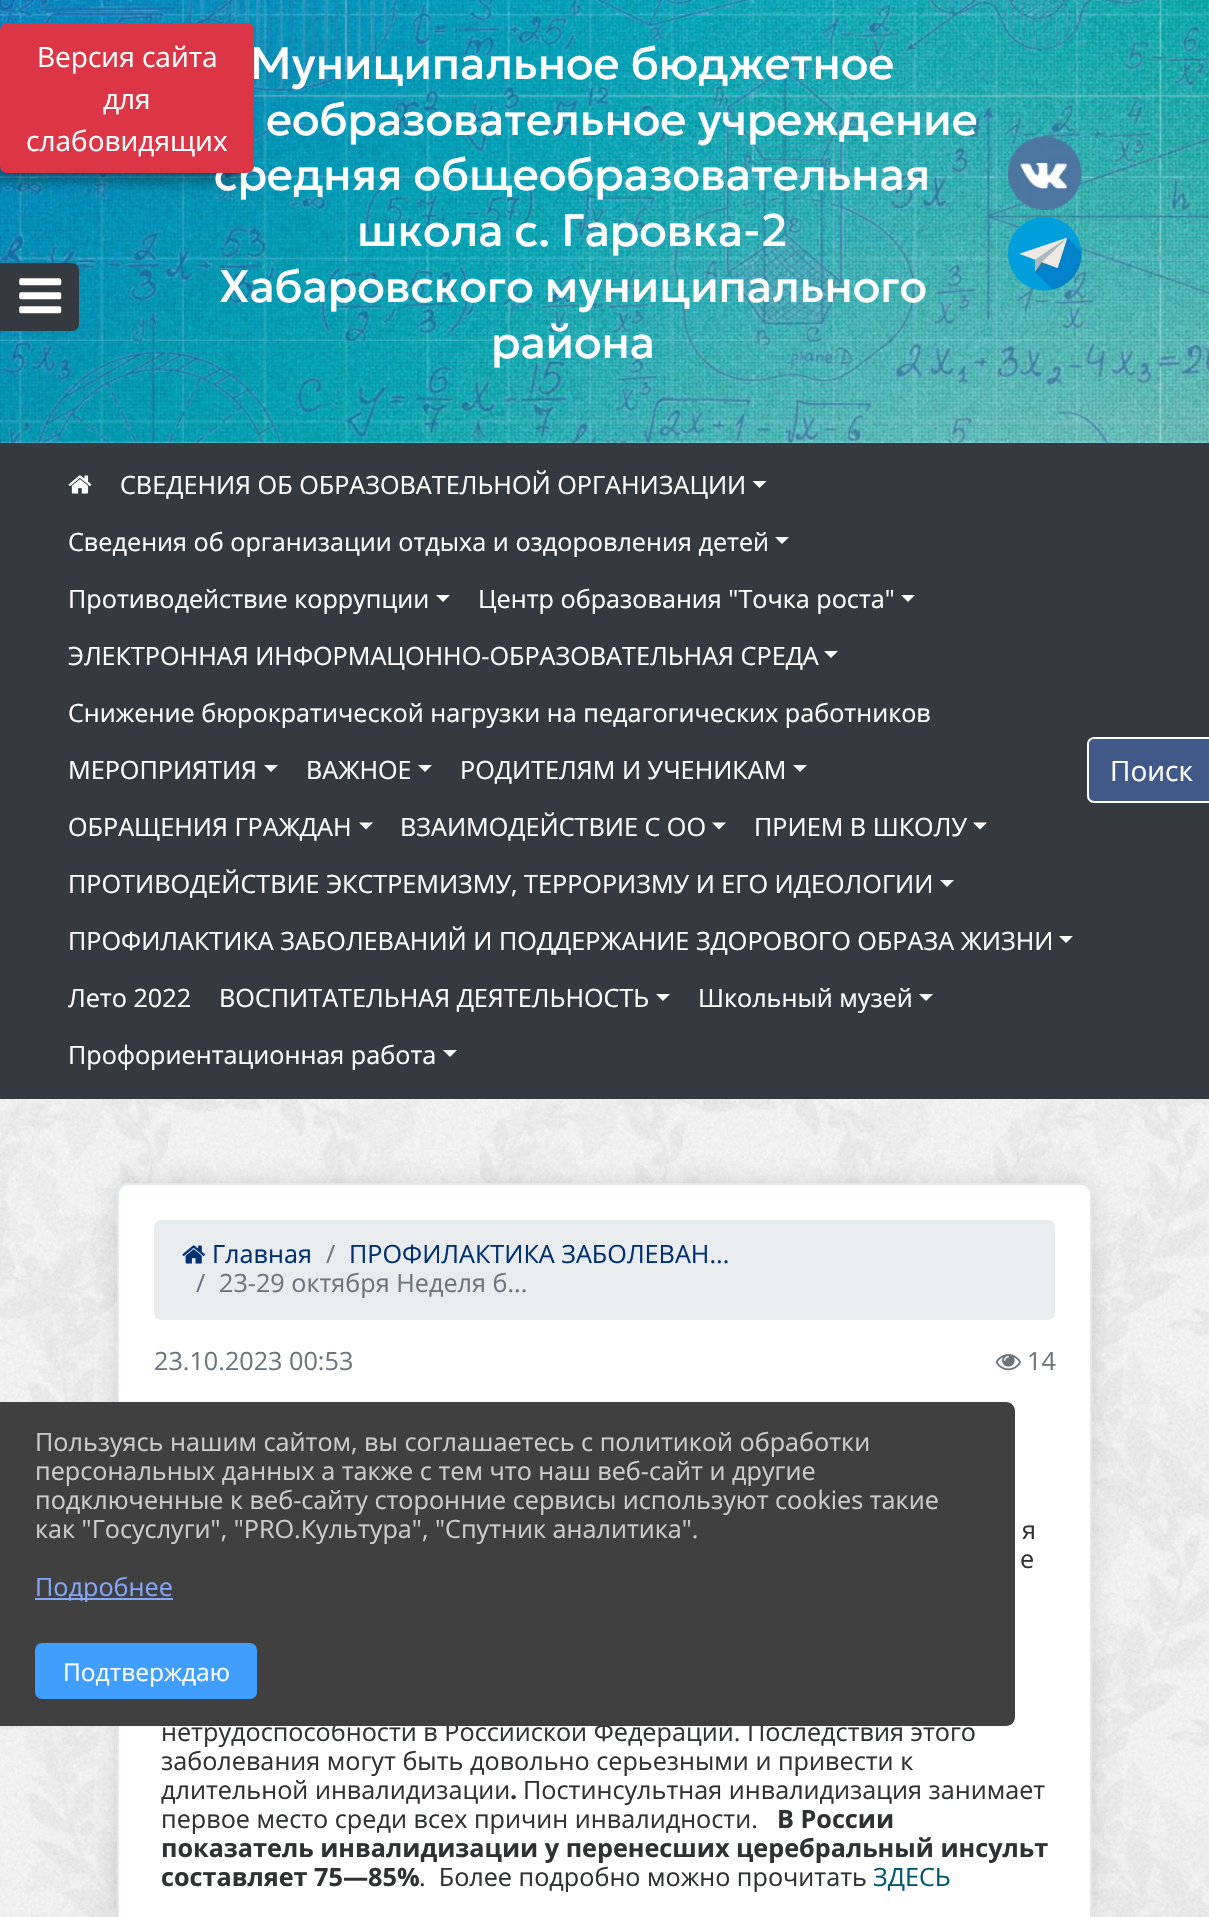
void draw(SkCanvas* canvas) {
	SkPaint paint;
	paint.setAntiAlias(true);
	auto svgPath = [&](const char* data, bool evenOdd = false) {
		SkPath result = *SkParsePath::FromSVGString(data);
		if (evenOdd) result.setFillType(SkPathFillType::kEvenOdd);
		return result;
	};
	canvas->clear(0xffffffff);
	canvas->drawImageRect(SkImages::DeferredFromEncodedData(SkData::MakeFromFileName("img1.png")), SkRect::MakeXYWH(0, 442, 1209, 1475), SkSamplingOptions());
	canvas->drawImageRect(SkImages::DeferredFromEncodedData(SkData::MakeFromFileName("img3.png")), SkRect::MakeXYWH(0, 0, 1209, 443), SkSamplingOptions());
	paint.setColor(0x59000000);
	paint.setMaskFilter(SkMaskFilter::MakeBlur(kNormal_SkBlurStyle, 7));
	canvas->drawRoundRect(SkRect::MakeXYWH(-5, 35, 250, 147), 5, 5, paint);
	paint.setMaskFilter(nullptr);
	SkFont f1(fontMgr->matchFamilyStyle("Geologica", SkFontStyle::Normal()), 45.5);
	f1.setSubpixel(true);
	paint.setColor(0xffffffff);
	canvas->drawString("средняя общеобразовательная", 214, 190, f1, paint);
	paint.setColor(0xffdc3545);
	canvas->drawRoundRect(SkRect::MakeXYWH(1, 24, 252, 148), 6, 6, paint);
	paint.setStroke(true);
	paint.setStrokeWidth(2);
	canvas->drawRoundRect(SkRect::MakeXYWH(1, 24, 252, 148), 6, 6, paint);
	SkFont f2(fontMgr->matchFamilyStyle("Open Sans", SkFontStyle::Normal()), 28);
	f2.setSubpixel(true);
	paint.setStroke(false);
	paint.setColor(0xffffffff);
	canvas->drawString("Версия сайта", 37, 67, f2, paint);
	canvas->drawString("для", 103, 109, f2, paint);
	canvas->drawString("слабовидящих", 26, 151, f2, paint);
	paint.setColor(0xff343a40);
	canvas->drawPath(svgPath("M1 264H72C75.5 264 78 266.5 78 270V324C78 327.5 75.5 330 72 330H1Z"), paint);
	paint.setStroke(true);
	canvas->drawPath(svgPath("M1 264H72C75.5 264 78 266.5 78 270V324C78 327.5 75.5 330 72 330H1Z"), paint);
	canvas->drawImageRect(SkImages::DeferredFromEncodedData(SkData::MakeFromFileName("img2.png")), SkRect::MakeXYWH(19, 278, 43, 36), SkSamplingOptions());
	paint.setStroke(false);
	paint.setColor(0xffffffff);
	canvas->drawString("Муниципальное бюджетное", 250, 79, f1, paint);
	canvas->drawString("еобразовательное учреждение", 266, 135, f1, paint);
	canvas->drawString("школа с. Гаровка-2", 357, 246, f1, paint);
	canvas->drawString("Хабаровского муниципального", 219, 302, f1, paint);
	canvas->drawString("района", 491, 358, f1, paint);
	canvas->drawImageRect(SkImages::DeferredFromEncodedData(SkData::MakeFromFileName("img4.png")), SkRect::MakeXYWH(1008, 136, 74, 74), SkSamplingOptions());
	canvas->drawImageRect(SkImages::DeferredFromEncodedData(SkData::MakeFromFileName("img5.png")), SkRect::MakeXYWH(1008, 217, 74, 74), SkSamplingOptions());
	paint.setColor(0xff343a40);
	canvas->drawRect(SkRect::MakeXYWH(0, 443, 1209, 656), paint);
	canvas->drawImageRect(SkImages::DeferredFromEncodedData(SkData::MakeFromFileName("img6.png")), SkRect::MakeXYWH(68, 475, 24, 19), SkSamplingOptions());
	SkFont f3(fontMgr->matchFamilyStyle("Open Sans", SkFontStyle::Normal()), 25.2);
	f3.setSubpixel(true);
	paint.setColor(0xffffffff);
	canvas->drawString("СВЕДЕНИЯ ОБ ОБРАЗОВАТЕЛЬНОЙ ОРГАНИЗАЦИИ", 120, 494, f3, paint);
	canvas->drawPath(svgPath("M752.5 481H766.5L759.5 488Z"), paint);
	canvas->drawString("Сведения об организации отдыха и оздоровления детей", 68, 551, f3, paint);
	canvas->drawPath(svgPath("M775 537H789L782 544Z"), paint);
	canvas->drawString("Противодействие коррупции", 68, 608, f3, paint);
	canvas->drawPath(svgPath("M436 595H450L443 602Z"), paint);
	canvas->drawString("Центр образования \"Точка роста\"", 478, 608, f3, paint);
	canvas->drawPath(svgPath("M901 595H915L908 602Z"), paint);
	canvas->drawString("ЭЛЕКТРОННАЯ ИНФОРМАЦОННО-ОБРАЗОВАТЕЛЬНАЯ СРЕДА", 68, 665, f3, paint);
	canvas->drawPath(svgPath("M824 651H838L831 658Z"), paint);
	canvas->drawString("Снижение бюрократической нагрузки на педагогических работников", 68, 722, f3, paint);
	canvas->drawString("МЕРОПРИЯТИЯ", 68, 779, f3, paint);
	canvas->drawPath(svgPath("M264 765H278L271 772Z"), paint);
	canvas->drawString("ВАЖНОЕ", 306, 779, f3, paint);
	canvas->drawPath(svgPath("M418 765H432L425 772Z"), paint);
	canvas->drawString("РОДИТЕЛЯМ И УЧЕНИКАМ", 460, 779, f3, paint);
	canvas->drawPath(svgPath("M793 765H807L800 772Z"), paint);
	canvas->drawString("ОБРАЩЕНИЯ ГРАЖДАН", 68, 836, f3, paint);
	canvas->drawPath(svgPath("M359 822.5H373L366 829.5Z"), paint);
	canvas->drawString("ВЗАИМОДЕЙСТВИЕ С ОО", 400, 836, f3, paint);
	canvas->drawPath(svgPath("M712 822.5H726L719 829.5Z"), paint);
	canvas->drawString("ПРИЕМ В ШКОЛУ", 754, 836, f3, paint);
	canvas->drawPath(svgPath("M973 822.5H987L980 829.5Z"), paint);
	canvas->drawString("ПРОТИВОДЕЙСТВИЕ ЭКСТРЕМИЗМУ, ТЕРРОРИЗМУ И ЕГО ИДЕОЛОГИИ", 68, 893, f3, paint);
	canvas->drawPath(svgPath("M940 880H954L947 887Z"), paint);
	canvas->drawString("ПРОФИЛАКТИКА ЗАБОЛЕВАНИЙ И ПОДДЕРЖАНИЕ ЗДОРОВОГО ОБРАЗА ЖИЗНИ", 68, 950, f3, paint);
	canvas->drawPath(svgPath("M1059 936H1073L1066 943Z"), paint);
	canvas->drawString("Лето 2022", 68, 1007, f3, paint);
	canvas->drawString("ВОСПИТАТЕЛЬНАЯ ДЕЯТЕЛЬНОСТЬ", 219, 1007, f3, paint);
	canvas->drawPath(svgPath("M656 994H670L663 1001Z"), paint);
	canvas->drawString("Школьный музей", 698, 1007, f3, paint);
	canvas->drawPath(svgPath("M919 994H933L926 1001Z"), paint);
	canvas->drawString("Профориентационная работа", 68, 1064, f3, paint);
	canvas->drawPath(svgPath("M443 1050H457L450 1057Z"), paint);
	paint.setColor(0xff405988);
	canvas->drawPath(svgPath("M1094 737H1209V803H1094C1090 803 1087 800 1087 796V744C1087 740 1090 737 1094 737Z"), paint);
	paint.setStroke(true);
	paint.setColor(0xffffffff);
	canvas->drawRoundRect(SkRect::MakeXYWH(1088, 738, 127, 64), 6, 6, paint);
	paint.setStroke(false);
	canvas->drawString("Поиск", 1110, 781, f2, paint);
	paint.setColor(0x1f000000);
	paint.setMaskFilter(SkMaskFilter::MakeBlur(kNormal_SkBlurStyle, 10.5));
	canvas->drawRoundRect(SkRect::MakeXYWH(117, 1183, 975, 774), 11, 11, paint);
	paint.setMaskFilter(nullptr);
	paint.setColor(0xffffffff);
	canvas->drawPath(svgPath("M128 1183H1081C1087 1183 1092 1188 1092 1194V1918H117V1194C117 1188 122 1183 128 1183Z"), paint);
	paint.setStroke(true);
	paint.setColor(0xffe4e7ed);
	canvas->drawRoundRect(SkRect::MakeXYWH(118, 1184, 973, 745), 10, 10, paint);
	paint.setStroke(false);
	paint.setColor(0xffe9ecef);
	canvas->drawRoundRect(SkRect::MakeXYWH(154, 1220, 901, 100), 7, 7, paint);
	canvas->drawImageRect(SkImages::DeferredFromEncodedData(SkData::MakeFromFileName("img7.png")), SkRect::MakeXYWH(182, 1245, 23, 19), SkSamplingOptions());
	paint.setColor(0xff002f72);
	canvas->drawString("Главная", 212, 1263, f3, paint);
	paint.setColor(0xff6c757d);
	canvas->drawString("/", 326, 1263, f3, paint);
	paint.setColor(0xff002f72);
	canvas->drawString("ПРОФИЛАКТИКА ЗАБОЛЕВАН...", 349, 1263, f3, paint);
	paint.setColor(0xff6c757d);
	canvas->drawString("/", 196, 1292, f3, paint);
	canvas->drawString("23-29 октября Неделя б...", 219, 1292, f3, paint);
	canvas->drawString("23.10.2023 00:53", 154, 1370, f3, paint);
	canvas->drawImageRect(SkImages::DeferredFromEncodedData(SkData::MakeFromFileName("img8.png")), SkRect::MakeXYWH(995, 1354, 26, 17), SkSamplingOptions());
	canvas->drawString("14", 1027, 1370, f3, paint);
	paint.setColor(0xff303133);
	canvas->drawString("я", 1022, 1539, f3, paint);
	canvas->drawString("е", 1020, 1568, f3, paint);
	canvas->drawString("нетрудоспособности в Российской Федерации. Последствия этого", 161, 1741, f3, paint);
	canvas->drawString("заболевания могут быть довольно серьезными и привести к", 161, 1770, f3, paint);
	canvas->drawString("длительной инвалидизации", 161, 1799, f3, paint);
	SkFont f4(fontMgr->matchFamilyStyle("Open Sans", SkFontStyle::Bold()), 25.2);
	f4.setSubpixel(true);
	canvas->drawString(".", 510, 1799, f4, paint);
	canvas->drawString("Постинсультная инвалидизация занимает", 523, 1799, f3, paint);
	canvas->drawString("первое место среди всех причин инвалидности.", 161, 1828, f3, paint);
	canvas->drawString("В России", 777, 1828, f4, paint);
	canvas->drawString("показатель инвалидизации у перенесших церебральный инсульт", 161, 1857, f4, paint);
	canvas->drawString("составляет 75—85%", 161, 1886, f4, paint);
	canvas->drawString(".  Более подробно можно прочитать", 419, 1886, f3, paint);
	paint.setColor(0xff00586f);
	canvas->drawString("ЗДЕСЬ", 873, 1886, f3, paint);
	paint.setColor(0xff404040);
	canvas->drawPath(svgPath("M0 1402H1006C1011 1402 1015 1406 1015 1411V1717C1015 1722 1011 1726 1006 1726H0Z"), paint);
	paint.setColor(0xffcccccc);
	canvas->drawString("Пользуясь нашим сайтом, вы соглашаетесь с политикой обработки", 35, 1451, f3, paint);
	canvas->drawString("персональных данных а также с тем что наш веб-сайт и другие", 35, 1480, f3, paint);
	canvas->drawString("подключенные к веб-сайту сторонние сервисы используют cookies такие", 35, 1509, f3, paint);
	canvas->drawString("как \"Госуслуги\", \"PRO.Культура\", \"Спутник аналитика\".", 35, 1538, f3, paint);
	paint.setColor(0xff85a6f9);
	canvas->drawRect(SkRect::MakeXYWH(35, 1598, 138, 2), paint);
	canvas->drawString("Подробнее", 35, 1596, f3, paint);
	paint.setColor(0xff409eff);
	canvas->drawRoundRect(SkRect::MakeXYWH(36, 1644, 220, 54), 6, 6, paint);
	paint.setStroke(true);
	canvas->drawRoundRect(SkRect::MakeXYWH(36, 1644, 220, 54), 6, 6, paint);
	SkFont f5(fontMgr->matchFamilyStyle("Open Sans", SkFontStyle::Normal()), 24.5);
	f5.setSubpixel(true);
	paint.setStroke(false);
	paint.setColor(0xffffffff);
	canvas->drawString("Подтверждаю", 63, 1681, f5, paint);
}
